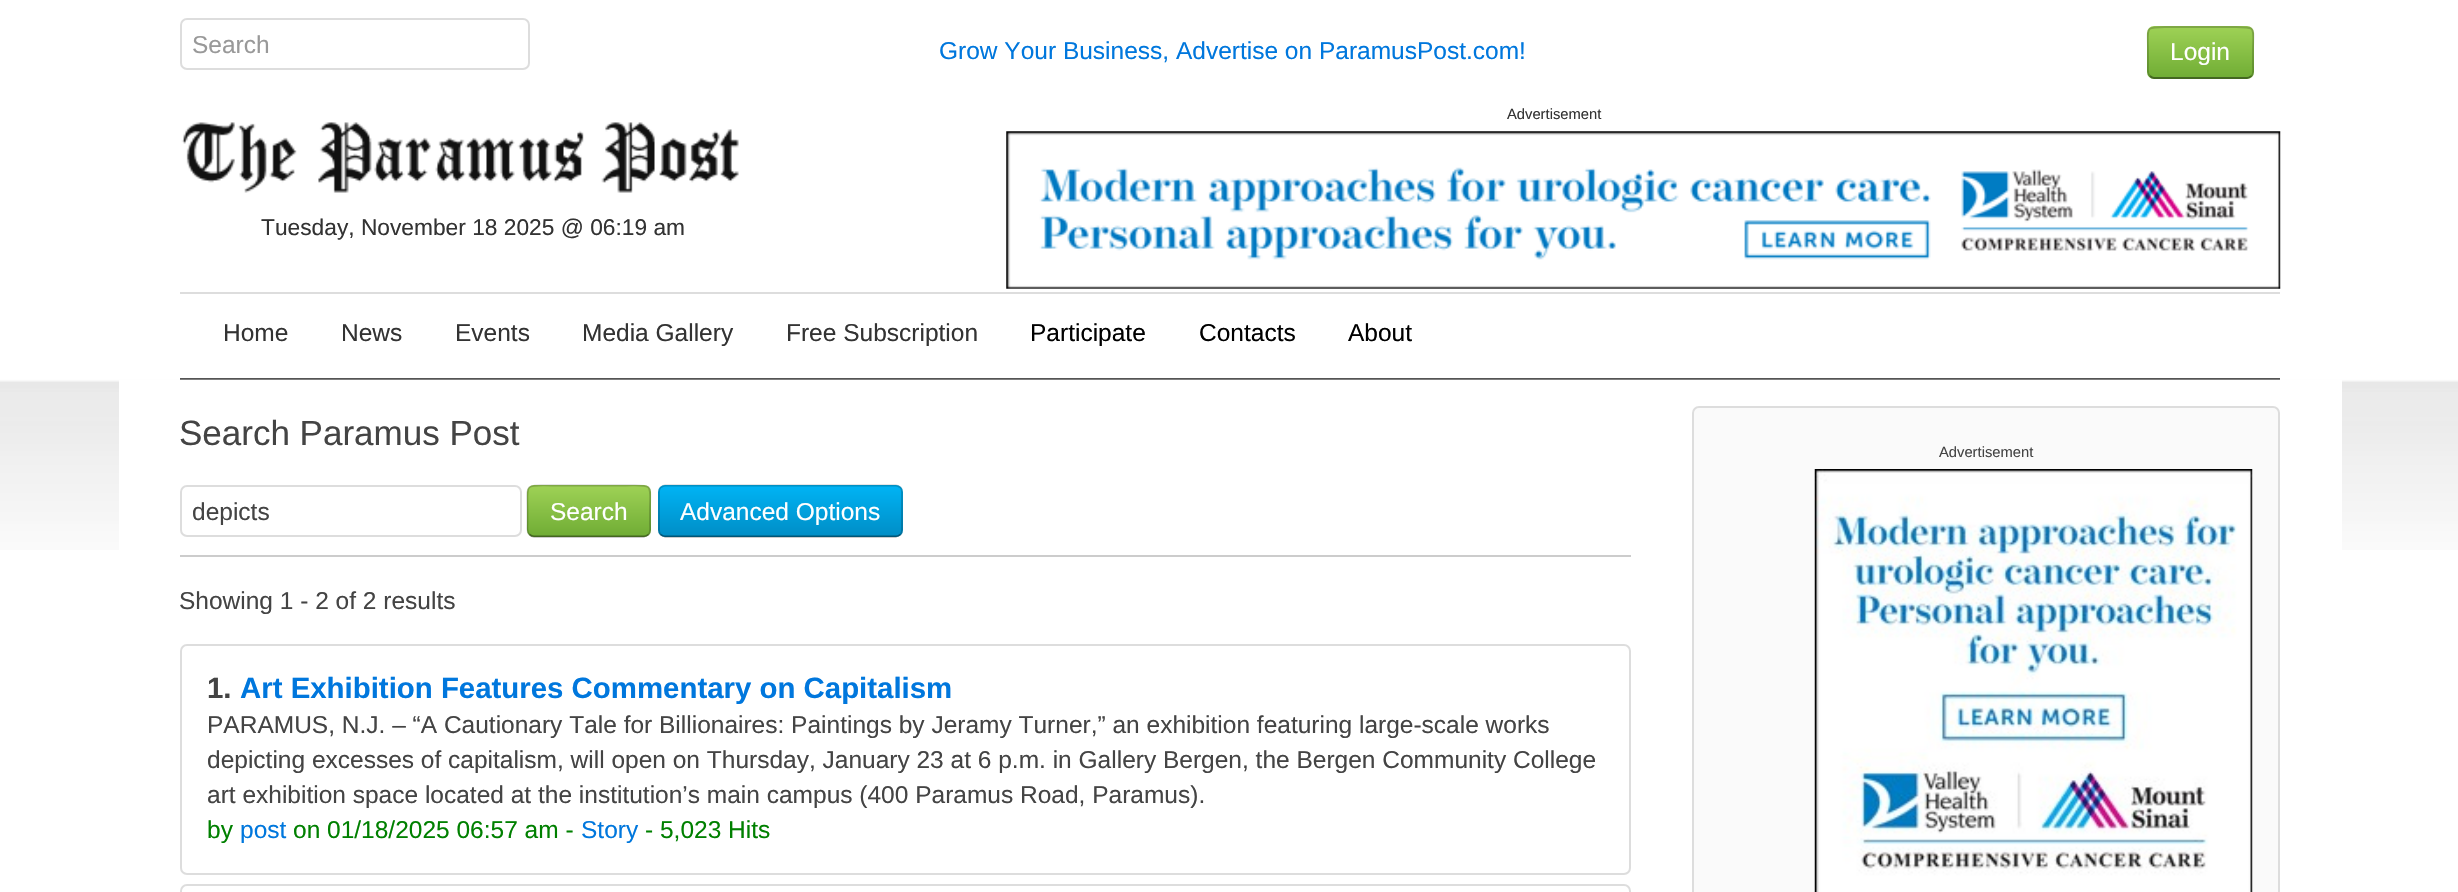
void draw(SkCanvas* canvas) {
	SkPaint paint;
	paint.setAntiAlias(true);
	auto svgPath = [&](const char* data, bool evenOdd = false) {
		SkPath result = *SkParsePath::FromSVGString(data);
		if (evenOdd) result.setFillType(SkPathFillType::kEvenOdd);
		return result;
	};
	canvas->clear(0xffffffff);
	paint.setStroke(true);
	paint.setStrokeWidth(2);
	paint.setColor(0xffdddddd);
	canvas->drawRoundRect(SkRect::MakeXYWH(181, 19, 348, 50), 6, 6, paint);
	SkFont f1(fontMgr->matchFamilyStyle("Liberation Sans", SkFontStyle::Normal()), 24.5);
	f1.setSubpixel(true);
	paint.setStroke(false);
	paint.setColor(0xff999999);
	canvas->drawString("Search", 192, 53, f1, paint);
	paint.setColor(0xff0077dd);
	canvas->drawString("Grow Your Business, Advertise on ParamusPost.com!", 939, 59, f1, paint);
	{
		const SkColor colors[] = {0xff9fd256, 0xff6fac34};
		const float stops[] = {0, 1};
		const SkPoint ends[] = {{2201, 26}, {2201, 79}};
		paint.setShader(SkGradientShader::MakeLinear(ends, colors, stops, 2, SkTileMode::kClamp));
		paint.setAlpha(255);
	}
	canvas->drawRoundRect(SkRect::MakeXYWH(2147, 26, 107, 53), 7, 7, paint);
	paint.setStroke(true);
	paint.setStrokeWidth(1.8);
	paint.setShader(nullptr);
	paint.setColor(0x66000000);
	canvas->drawPath(svgPath("M2251.5 76C2250 77 2248.5 78 2247 78H2154C2152.5 78 2151 77 2150 76"), paint);
	paint.setColor(0x33000000);
	canvas->drawPath(svgPath("M2150 76C2147 73.5 2148 68.5 2148 65.5V52.5C2148 25.5 2143.5 27 2169.5 27H2231.5C2258 27 2253 25.5 2253 52.5V65.5C2253 68.5 2254 73.5 2251.5 76"), paint);
	paint.setStroke(false);
	paint.setColor(0xffffffff);
	canvas->drawString("Login", 2170, 60, f1, paint);
	SkFont f2(fontMgr->matchFamilyStyle("Liberation Sans", SkFontStyle::Normal()), 14.75);
	f2.setSubpixel(true);
	paint.setColor(0xff333333);
	canvas->drawString("Advertisement", 1507, 119, f2, paint);
	canvas->drawImageRect(SkImages::DeferredFromEncodedData(SkData::MakeFromFileName("img1.png")), SkRect::MakeXYWH(1006, 131, 1275, 158), SkSamplingOptions());
	canvas->drawImageRect(SkImages::DeferredFromEncodedData(SkData::MakeFromFileName("img2.png")), SkRect::MakeXYWH(181, 122, 558, 71), SkSamplingOptions());
	SkFont f3(fontMgr->matchFamilyStyle("Liberation Sans", SkFontStyle::Normal()), 22.75);
	f3.setSubpixel(true);
	canvas->drawString("Tuesday, November 18 2025 @ 06:19 am", 261, 235, f3, paint);
	paint.setColor(0xffdddddd);
	canvas->drawRect(SkRect::MakeXYWH(180, 292, 2100, 2), paint);
	paint.setColor(0xff555555);
	canvas->drawRect(SkRect::MakeXYWH(180, 378, 2100, 2), paint);
	paint.setColor(0xff333333);
	canvas->drawString("Home", 223, 341, f1, paint);
	canvas->drawString("News", 341, 341, f1, paint);
	canvas->drawString("Events", 455, 341, f1, paint);
	canvas->drawString("Media Gallery", 582, 341, f1, paint);
	canvas->drawString("Free Subscription", 786, 341, f1, paint);
	paint.setColor(0xff000000);
	canvas->drawString("Participate", 1030, 341, f1, paint);
	canvas->drawString("Contacts", 1199, 341, f1, paint);
	canvas->drawString("About", 1348, 341, f1, paint);
	canvas->drawImageRect(SkImages::DeferredFromEncodedData(SkData::MakeFromFileName("img3.png")), SkRect::MakeXYWH(0, 379, 2458, 171), SkSamplingOptions());
	paint.setColor(0xffffffff);
	canvas->drawRect(SkRect::MakeXYWH(119, 380, 2223, 170), paint);
	SkFont f4(fontMgr->matchFamilyStyle("Liberation Sans", SkFontStyle::Normal()), 35);
	f4.setSubpixel(true);
	paint.setColor(0xff444444);
	canvas->drawString("Search Paramus Post", 179, 445, f4, paint);
	paint.setStroke(true);
	paint.setStrokeWidth(2);
	paint.setColor(0xffdddddd);
	canvas->drawRoundRect(SkRect::MakeXYWH(181, 486, 340, 50), 6, 6, paint);
	canvas->save();
	canvas->clipRect(SkRect::MakeXYWH(193, 497, 309, 28));
	paint.setStroke(false);
	paint.setColor(0xff444444);
	canvas->drawString("depicts", 192, 520, f1, paint);
	canvas->restore();
	{
		const SkColor colors[] = {0xff9fd256, 0xff6fac34};
		const float stops[] = {0, 1};
		const SkPoint ends[] = {{589, 485}, {589, 537}};
		paint.setShader(SkGradientShader::MakeLinear(ends, colors, stops, 2, SkTileMode::kClamp));
		paint.setAlpha(255);
	}
	canvas->drawRoundRect(SkRect::MakeXYWH(527, 485, 124, 52), 7, 7, paint);
	paint.setStroke(true);
	paint.setStrokeWidth(1.8);
	paint.setShader(nullptr);
	paint.setColor(0x66000000);
	canvas->drawPath(svgPath("M648.5 534.5C647 535.5 645.5 536.5 644 536.5H534C532 536.5 530.5 535.5 529.5 534.5"), paint);
	paint.setColor(0x33000000);
	canvas->drawPath(svgPath("M529.5 534.5C526.5 532 527.5 527 527.5 524V511C527.5 482.5 523.5 485.5 552 485.5H625.5C654.5 485.5 650 482.5 650 511V524C650 527 651 532 648.5 534.5"), paint);
	paint.setStroke(false);
	paint.setColor(0xffffffff);
	canvas->drawString("Search", 550, 520, f1, paint);
	{
		const SkColor colors[] = {0xff00b4f5, 0xff008dc5};
		const float stops[] = {0, 1};
		const SkPoint ends[] = {{781, 485}, {781, 537}};
		paint.setShader(SkGradientShader::MakeLinear(ends, colors, stops, 2, SkTileMode::kClamp));
		paint.setAlpha(255);
	}
	canvas->drawRoundRect(SkRect::MakeXYWH(658, 485, 245, 52), 7, 7, paint);
	paint.setStroke(true);
	paint.setShader(nullptr);
	paint.setColor(0x66000000);
	canvas->drawPath(svgPath("M900.5 534.5C899 535.5 897.5 536.5 896 536.5H665C663.5 536.5 662 535.5 660.5 534.5"), paint);
	paint.setColor(0x33000000);
	canvas->drawPath(svgPath("M660.5 534.5C659.5 533.5 659 532 659 530V492C659 490 659.5 488.5 660.5 487.5C662 486.5 663.5 485.5 665 485.5H896C897.5 485.5 899 486.5 900.5 487.5C901.5 488.5 902 490 902 492V530C902 532 901.5 533.5 900.5 534.5"), paint);
	paint.setStroke(false);
	paint.setColor(0xffffffff);
	canvas->drawString("Advanced Options", 680, 520, f1, paint);
	paint.setColor(0xffcccccc);
	canvas->drawRect(SkRect::MakeXYWH(180, 555, 1451, 2), paint);
	paint.setColor(0xff444444);
	canvas->drawString("Showing 1 - 2 of 2 results", 179, 609, f1, paint);
	paint.setStroke(true);
	paint.setStrokeWidth(2);
	paint.setColor(0xffdddddd);
	canvas->drawRoundRect(SkRect::MakeXYWH(181, 645, 1449, 229), 6, 6, paint);
	SkFont f5(fontMgr->matchFamilyStyle("Liberation Sans", SkFontStyle::Bold()), 29.4);
	f5.setSubpixel(true);
	paint.setStroke(false);
	paint.setColor(0xff444444);
	canvas->drawString("1.", 207, 698, f5, paint);
	paint.setColor(0xff0077dd);
	canvas->drawString("Art Exhibition Features Commentary on Capitalism", 240, 698, f5, paint);
	paint.setColor(0xff444444);
	canvas->drawString("PARAMUS, N.J. – “A Cautionary Tale for Billionaires: Paintings by Jeramy Turner,” an exhibition featuring large-scale works", 207, 733, f1, paint);
	canvas->drawString("depicting excesses of capitalism, will open on Thursday, January 23 at 6 p.m. in Gallery Bergen, the Bergen Community College", 207, 768, f1, paint);
	canvas->drawString("art exhibition space located at the institution’s main campus (400 Paramus Road, Paramus).", 207, 803, f1, paint);
	paint.setColor(0xff008000);
	canvas->drawString("by", 207, 838, f1, paint);
	paint.setColor(0xff0077dd);
	canvas->drawString("post", 240, 838, f1, paint);
	paint.setColor(0xff008000);
	canvas->drawString("on 01/18/2025 06:57 am -", 293, 838, f1, paint);
	paint.setColor(0xff0077dd);
	canvas->drawString("Story", 581, 838, f1, paint);
	paint.setColor(0xff008000);
	canvas->drawString("- 5,023 Hits", 645, 838, f1, paint);
	paint.setStroke(true);
	paint.setColor(0xffdddddd);
	canvas->drawRoundRect(SkRect::MakeXYWH(181, 885, 1449, 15), 6, 6, paint);
	paint.setStroke(false);
	paint.setColor(0xfffafafa);
	canvas->drawRoundRect(SkRect::MakeXYWH(1693, 407, 586, 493), 6, 6, paint);
	paint.setStroke(true);
	paint.setColor(0xffdddddd);
	canvas->drawRoundRect(SkRect::MakeXYWH(1693, 407, 586, 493), 6, 6, paint);
	paint.setStroke(false);
	paint.setColor(0xff444444);
	canvas->drawString("Advertisement", 1939, 457, f2, paint);
	canvas->drawImageRect(SkImages::DeferredFromEncodedData(SkData::MakeFromFileName("img4.png")), SkRect::MakeXYWH(1814, 469, 439, 423), SkSamplingOptions());
}
